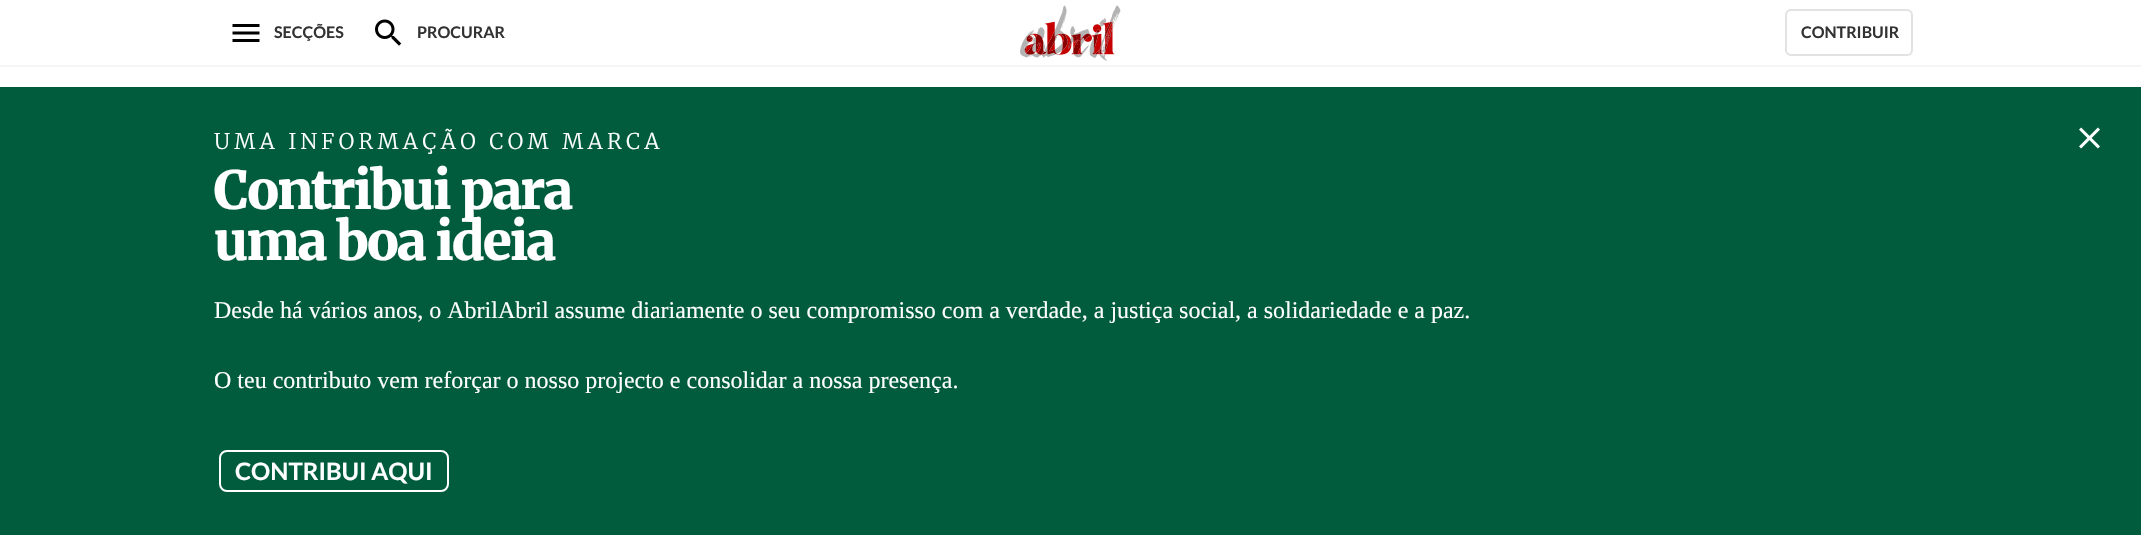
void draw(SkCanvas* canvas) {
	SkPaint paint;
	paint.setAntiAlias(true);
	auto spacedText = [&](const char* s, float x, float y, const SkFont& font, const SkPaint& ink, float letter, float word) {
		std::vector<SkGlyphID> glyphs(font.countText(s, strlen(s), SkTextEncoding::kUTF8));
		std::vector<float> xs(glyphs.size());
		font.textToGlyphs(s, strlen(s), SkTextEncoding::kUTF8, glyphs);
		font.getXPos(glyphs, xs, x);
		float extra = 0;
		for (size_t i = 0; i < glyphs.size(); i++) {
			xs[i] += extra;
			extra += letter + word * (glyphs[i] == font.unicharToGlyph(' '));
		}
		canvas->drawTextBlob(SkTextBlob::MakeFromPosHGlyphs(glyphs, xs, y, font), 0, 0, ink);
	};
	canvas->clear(0xffffffff);
	paint.setColor(0xfff5f5f5);
	canvas->drawRect(SkRect::MakeXYWH(0, 65, 2141, 2), paint);
	canvas->drawImageRect(SkImages::DeferredFromEncodedData(SkData::MakeFromFileName("img1.png")), SkRect::MakeXYWH(232, 24, 28, 18), SkSamplingOptions());
	SkFont f1(fontMgr->matchFamilyStyle("Lato", SkFontStyle::Bold()), 16);
	f1.setSubpixel(true);
	paint.setColor(0xff333333);
	canvas->drawString("SECÇÕES", 274, 38, f1, paint);
	canvas->drawImageRect(SkImages::DeferredFromEncodedData(SkData::MakeFromFileName("img2.png")), SkRect::MakeXYWH(375, 19, 27, 27), SkSamplingOptions());
	canvas->drawString("PROCURAR", 417, 38, f1, paint);
	canvas->drawImageRect(SkImages::DeferredFromEncodedData(SkData::MakeFromFileName("img3.png")), SkRect::MakeXYWH(1020, 5, 101, 56), SkSamplingOptions());
	paint.setStroke(true);
	paint.setStrokeWidth(2);
	paint.setColor(0xffe2e2e2);
	canvas->drawRoundRect(SkRect::MakeXYWH(1786, 10, 126, 45), 5, 5, paint);
	paint.setStroke(false);
	paint.setColor(0xff333333);
	canvas->drawString("CONTRIBUIR", 1801, 38, f1, paint);
	paint.setColor(0xff015c3e);
	canvas->drawRect(SkRect::MakeXYWH(0, 87, 2141, 448), paint);
	SkFont f2(fontMgr->matchFamilyStyle("Merriweather", SkFontStyle(300, SkFontStyle::kNormal_Width, SkFontStyle::kUpright_Slant)), 21.6);
	f2.setSubpixel(true);
	paint.setColor(0xffffffff);
	spacedText("UMA INFORMAÇÃO COM MARCA", 214, 149, f2, paint, 4.3, 0);
	SkFont f3(fontMgr->matchFamilyStyle("Merriweather", SkFontStyle(900, SkFontStyle::kNormal_Width, SkFontStyle::kUpright_Slant)), 52.75);
	f3.setSubpixel(true);
	spacedText("Contribui para", 214, 209, f3, paint, -2.1, 0);
	spacedText("uma boa ideia", 214, 260, f3, paint, -2.1, 0);
	SkFont f4(fontMgr->matchFamilyStyle("Liberation Serif", SkFontStyle::Normal()), 24);
	f4.setSubpixel(true);
	canvas->drawString("Desde há vários anos, o AbrilAbril assume diariamente o seu compromisso com a verdade, a justiça social, a solidariedade e a paz.", 214, 318, f4, paint);
	canvas->drawString("O teu contributo vem reforçar o nosso projecto e consolidar a nossa presença.", 214, 388, f4, paint);
	paint.setStroke(true);
	canvas->drawRoundRect(SkRect::MakeXYWH(220, 451, 228, 40), 7, 7, paint);
	SkFont f5(fontMgr->matchFamilyStyle("Lato", SkFontStyle::Bold()), 24);
	f5.setSubpixel(true);
	paint.setStroke(false);
	canvas->drawString("CONTRIBUI AQUI", 235, 480, f5, paint);
	canvas->drawImageRect(SkImages::DeferredFromEncodedData(SkData::MakeFromFileName("img4.png")), SkRect::MakeXYWH(2079, 127, 21, 22), SkSamplingOptions());
}
